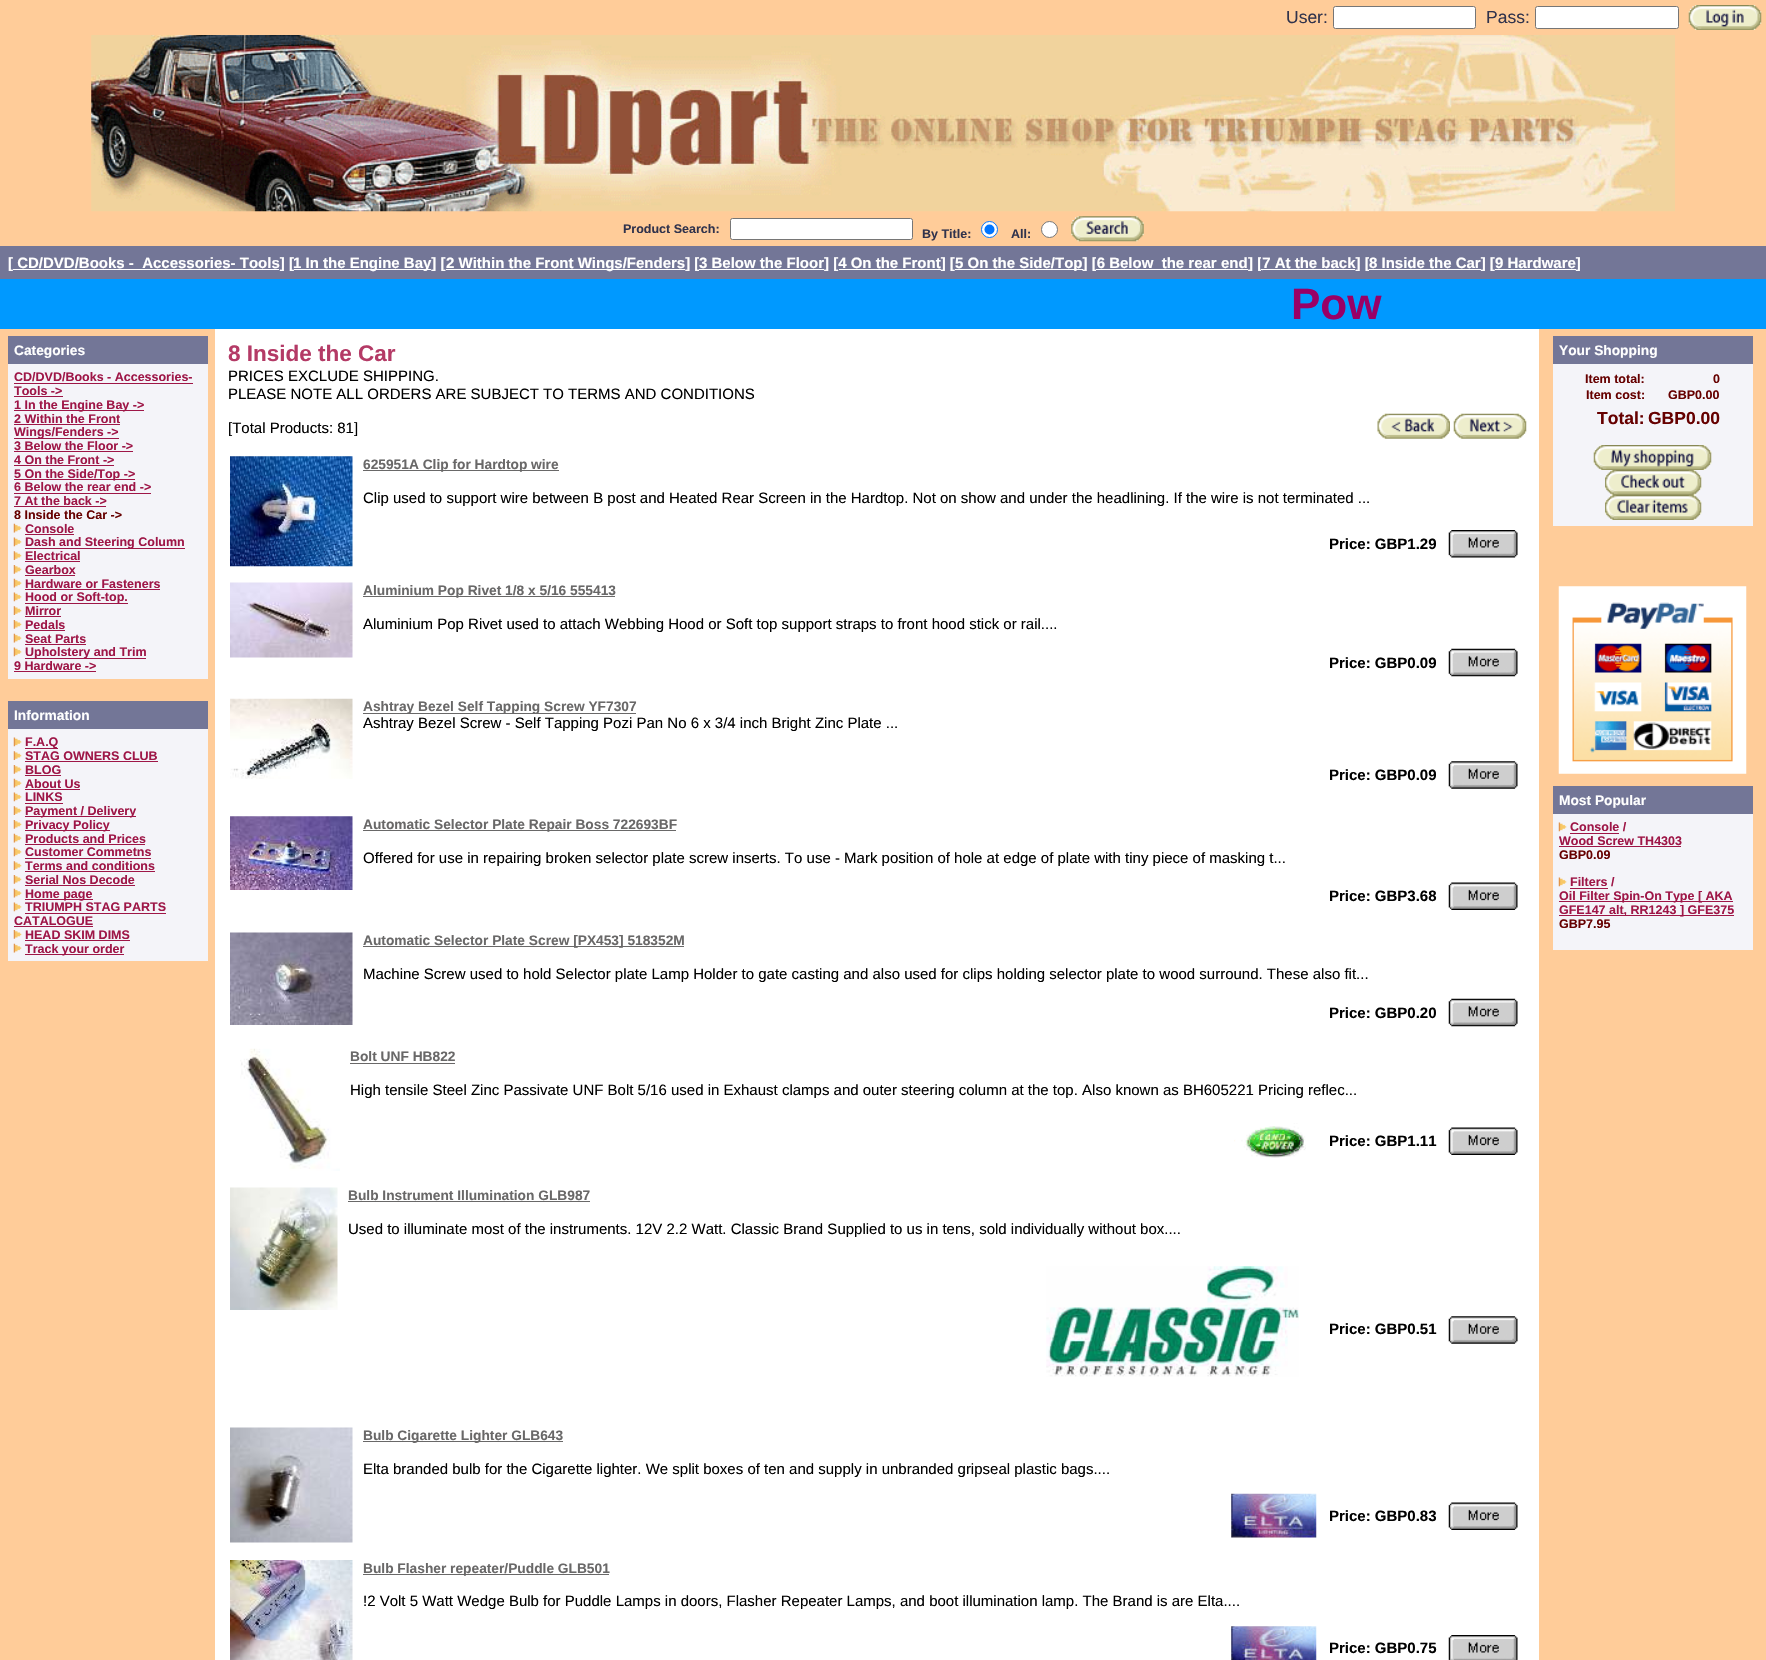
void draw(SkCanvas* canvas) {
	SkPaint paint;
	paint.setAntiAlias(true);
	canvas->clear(0xffffffff);
	paint.setColor(0xffffcc99);
	canvas->drawRect(SkRect::MakeXYWH(0, 0, 1766, 246), paint);
	SkFont f1(fontMgr->matchFamilyStyle("Liberation Sans", SkFontStyle::Normal()), 17.5);
	f1.setSubpixel(true);
	paint.setColor(0xff31334c);
	canvas->drawString("User:", 1286, 23, f1, paint);
	paint.setColor(0xffffffff);
	canvas->drawRoundRect(SkRect::MakeXYWH(1333.5, 6.5, 142, 22), 2, 2, paint);
	paint.setStroke(true);
	paint.setStrokeWidth(1);
	paint.setColor(0xff767676);
	canvas->drawRoundRect(SkRect::MakeXYWH(1333.5, 6.5, 142, 22), 2, 2, paint);
	paint.setStroke(false);
	paint.setColor(0xff31334c);
	canvas->drawString("Pass:", 1486, 23, f1, paint);
	paint.setColor(0xffffffff);
	canvas->drawRoundRect(SkRect::MakeXYWH(1535.5, 6.5, 143, 22), 2, 2, paint);
	paint.setStroke(true);
	paint.setColor(0xff767676);
	canvas->drawRoundRect(SkRect::MakeXYWH(1535.5, 6.5, 143, 22), 2, 2, paint);
	canvas->drawImageRect(SkImages::DeferredFromEncodedData(SkData::MakeFromFileName("img1.png")), SkRect::MakeXYWH(1688, 5, 74, 25), SkSamplingOptions());
	canvas->drawImageRect(SkImages::DeferredFromEncodedData(SkData::MakeFromFileName("img2.png")), SkRect::MakeXYWH(91, 35, 1584, 177), SkSamplingOptions());
	SkFont f2(fontMgr->matchFamilyStyle("Liberation Sans", SkFontStyle::Bold()), 12.5);
	f2.setSubpixel(true);
	paint.setStroke(false);
	paint.setColor(0xff31334c);
	canvas->drawString("Product Search:", 623, 233, f2, paint);
	paint.setColor(0xffffffff);
	canvas->drawRoundRect(SkRect::MakeXYWH(730.5, 218.5, 182, 21), 2, 2, paint);
	paint.setStroke(true);
	paint.setColor(0xff767676);
	canvas->drawRoundRect(SkRect::MakeXYWH(730.5, 218.5, 182, 21), 2, 2, paint);
	paint.setStroke(false);
	paint.setColor(0xff31334c);
	canvas->drawString("By Title:", 922, 238, f2, paint);
	paint.setColor(0xffffffff);
	canvas->drawCircle(989.5, 229.5, 8, paint);
	paint.setStroke(true);
	paint.setColor(0xff0075ff);
	canvas->drawCircle(989.5, 229.5, 8, paint);
	paint.setStroke(false);
	canvas->drawCircle(989.5, 229.5, 5, paint);
	paint.setColor(0xff31334c);
	canvas->drawString("All:", 1011, 238, f2, paint);
	paint.setColor(0xffffffff);
	canvas->drawCircle(1049.5, 229.5, 8, paint);
	paint.setStroke(true);
	paint.setColor(0xff767676);
	canvas->drawCircle(1049.5, 229.5, 8, paint);
	canvas->drawImageRect(SkImages::DeferredFromEncodedData(SkData::MakeFromFileName("img3.png")), SkRect::MakeXYWH(1071, 216, 73, 26), SkSamplingOptions());
	paint.setStroke(false);
	paint.setColor(0xff737697);
	canvas->drawRect(SkRect::MakeXYWH(0, 246, 1766, 33), paint);
	SkFont f3(fontMgr->matchFamilyStyle("Liberation Sans", SkFontStyle::Bold()), 15);
	f3.setSubpixel(true);
	paint.setColor(0xffffffff);
	canvas->drawString("[ CD/DVD/Books -  Accessories- Tools] [", 8, 268, f3, paint);
	canvas->drawRect(SkRect::MakeXYWH(294, 269, 137, 1), paint);
	canvas->drawString("1 In the Engine Bay] [", 293, 268, f3, paint);
	canvas->drawRect(SkRect::MakeXYWH(446, 269, 239, 1), paint);
	canvas->drawString("2 Within the Front Wings/Fenders] [", 446, 268, f3, paint);
	paint.setColor(0xff737697);
	canvas->drawRect(SkRect::MakeXYWH(699, 257, 1, 14), paint);
	paint.setColor(0xffffffff);
	canvas->drawRect(SkRect::MakeXYWH(699, 269, 125, 1), paint);
	canvas->drawString("3 Below the Floor] [4 On the Front] [", 699, 268, f3, paint);
	canvas->drawRect(SkRect::MakeXYWH(955, 269, 128, 1), paint);
	canvas->drawString("5 On the Side/Top] [6 Below  the rear end", 955, 268, f3, paint);
	paint.setColor(0xff737697);
	canvas->drawRect(SkRect::MakeXYWH(1096, 257, 1, 14), paint);
	paint.setColor(0xffffffff);
	canvas->drawRect(SkRect::MakeXYWH(1096, 269, 152, 1), paint);
	canvas->drawString("] [7 At the back] [", 1248, 268, f3, paint);
	canvas->drawRect(SkRect::MakeXYWH(13, 269, 266, 1), paint);
	canvas->drawRect(SkRect::MakeXYWH(839, 269, 102, 1), paint);
	paint.setColor(0xff737697);
	canvas->drawRect(SkRect::MakeXYWH(1261, 257, 1, 14), paint);
	canvas->drawRect(SkRect::MakeXYWH(1369, 257, 1, 14), paint);
	paint.setColor(0xffffffff);
	canvas->drawRect(SkRect::MakeXYWH(1369, 269, 112, 1), paint);
	canvas->drawString("8 Inside the Car] [", 1369, 268, f3, paint);
	paint.setColor(0xff737697);
	canvas->drawRect(SkRect::MakeXYWH(1495, 257, 1, 14), paint);
	paint.setColor(0xffffffff);
	canvas->drawRect(SkRect::MakeXYWH(1495, 269, 81, 1), paint);
	canvas->drawString("9 Hardware]", 1495, 268, f3, paint);
	canvas->drawRect(SkRect::MakeXYWH(1261, 269, 94, 1), paint);
	paint.setColor(0xff0099ff);
	canvas->drawRect(SkRect::MakeXYWH(0, 279, 1766, 50), paint);
	SkFont f4(fontMgr->matchFamilyStyle("Liberation Sans", SkFontStyle::Bold()), 44);
	f4.setSubpixel(true);
	paint.setColor(0xff990066);
	canvas->drawString("Pow", 1291, 319, f4, paint);
	paint.setColor(0xffffcc99);
	canvas->drawRect(SkRect::MakeXYWH(0, 329, 215, 1331), paint);
	paint.setColor(0xff737697);
	canvas->drawRect(SkRect::MakeXYWH(8, 336, 200, 28), paint);
	SkFont f5(fontMgr->matchFamilyStyle("Liberation Sans", SkFontStyle::Bold()), 13.75);
	f5.setSubpixel(true);
	paint.setColor(0xffffffff);
	canvas->drawString("Categories", 14, 355, f5, paint);
	paint.setColor(0xfff4f4f9);
	canvas->drawRect(SkRect::MakeXYWH(8, 364, 200, 315), paint);
	paint.setColor(0xff9e1647);
	canvas->drawString("CD/DVD/Books - Accessories-", 14, 381, f2, paint);
	canvas->drawRect(SkRect::MakeXYWH(14, 383, 179, 1), paint);
	canvas->drawString("Tools ->", 14, 395, f2, paint);
	canvas->drawRect(SkRect::MakeXYWH(14, 396, 49, 1), paint);
	canvas->drawRect(SkRect::MakeXYWH(14, 410, 130, 1), paint);
	canvas->drawString("1 In the Engine Bay ->", 14, 409, f2, paint);
	canvas->drawString("2 Within the Front", 14, 423, f2, paint);
	canvas->drawRect(SkRect::MakeXYWH(14, 424, 106, 1), paint);
	canvas->drawRect(SkRect::MakeXYWH(14, 438, 105, 1), paint);
	canvas->drawString("Wings/Fenders ->", 14, 436, f2, paint);
	canvas->drawString("3 Below the Floor ->", 14, 450, f2, paint);
	canvas->drawRect(SkRect::MakeXYWH(14, 451, 119, 1), paint);
	canvas->drawString("4 On the Front ->", 14, 464, f2, paint);
	canvas->drawRect(SkRect::MakeXYWH(14, 465, 100, 1), paint);
	canvas->drawRect(SkRect::MakeXYWH(14, 479, 121, 1), paint);
	canvas->drawString("5 On the Side/Top ->", 14, 478, f2, paint);
	canvas->drawString("6 Below the rear end ->", 14, 491, f2, paint);
	canvas->drawRect(SkRect::MakeXYWH(14, 493, 137, 1), paint);
	canvas->drawString("7 At the back ->", 14, 505, f2, paint);
	canvas->drawRect(SkRect::MakeXYWH(14, 506, 92, 1), paint);
	paint.setColor(0xff660000);
	canvas->drawString("8 Inside the Car ->", 14, 519, f2, paint);
	canvas->drawImageRect(SkImages::DeferredFromEncodedData(SkData::MakeFromFileName("img4.png")), SkRect::MakeXYWH(13, 523, 9, 10), SkSamplingOptions());
	paint.setColor(0xff9e1647);
	canvas->drawString("Console", 25, 533, f2, paint);
	canvas->drawRect(SkRect::MakeXYWH(25, 534, 49, 1), paint);
	canvas->drawImageRect(SkImages::DeferredFromEncodedData(SkData::MakeFromFileName("img5.png")), SkRect::MakeXYWH(13, 537, 9, 10), SkSamplingOptions());
	canvas->drawRect(SkRect::MakeXYWH(25, 548, 160, 1), paint);
	canvas->drawString("Dash and Steering Column", 25, 546, f2, paint);
	canvas->drawImageRect(SkImages::DeferredFromEncodedData(SkData::MakeFromFileName("img6.png")), SkRect::MakeXYWH(13, 551, 9, 9), SkSamplingOptions());
	canvas->drawString("Electrical", 25, 560, f2, paint);
	canvas->drawRect(SkRect::MakeXYWH(25, 561, 55, 1), paint);
	canvas->drawImageRect(SkImages::DeferredFromEncodedData(SkData::MakeFromFileName("img7.png")), SkRect::MakeXYWH(13, 565, 9, 9), SkSamplingOptions());
	canvas->drawString("Gearbox", 25, 574, f2, paint);
	canvas->drawRect(SkRect::MakeXYWH(25, 575, 50, 1), paint);
	canvas->drawImageRect(SkImages::DeferredFromEncodedData(SkData::MakeFromFileName("img4.png")), SkRect::MakeXYWH(13, 578, 9, 10), SkSamplingOptions());
	canvas->drawString("Hardware or Fasteners", 25, 588, f2, paint);
	canvas->drawRect(SkRect::MakeXYWH(25, 589, 135, 1), paint);
	canvas->drawImageRect(SkImages::DeferredFromEncodedData(SkData::MakeFromFileName("img5.png")), SkRect::MakeXYWH(13, 592, 9, 10), SkSamplingOptions());
	canvas->drawRect(SkRect::MakeXYWH(25, 603, 103, 1), paint);
	canvas->drawString("Hood or Soft-top.", 25, 601, f2, paint);
	canvas->drawImageRect(SkImages::DeferredFromEncodedData(SkData::MakeFromFileName("img6.png")), SkRect::MakeXYWH(13, 606, 9, 9), SkSamplingOptions());
	canvas->drawString("Mirror", 25, 615, f2, paint);
	canvas->drawRect(SkRect::MakeXYWH(25, 616, 36, 1), paint);
	canvas->drawImageRect(SkImages::DeferredFromEncodedData(SkData::MakeFromFileName("img7.png")), SkRect::MakeXYWH(13, 620, 9, 9), SkSamplingOptions());
	canvas->drawString("Pedals", 25, 629, f2, paint);
	canvas->drawRect(SkRect::MakeXYWH(25, 630, 40, 1), paint);
	canvas->drawImageRect(SkImages::DeferredFromEncodedData(SkData::MakeFromFileName("img4.png")), SkRect::MakeXYWH(13, 633, 9, 10), SkSamplingOptions());
	canvas->drawString("Seat Parts", 25, 643, f2, paint);
	canvas->drawRect(SkRect::MakeXYWH(25, 644, 61, 1), paint);
	canvas->drawImageRect(SkImages::DeferredFromEncodedData(SkData::MakeFromFileName("img5.png")), SkRect::MakeXYWH(13, 647, 9, 10), SkSamplingOptions());
	canvas->drawRect(SkRect::MakeXYWH(25, 658, 121, 1), paint);
	canvas->drawString("Upholstery and Trim", 25, 656, f2, paint);
	canvas->drawString("9 Hardware ->", 14, 670, f2, paint);
	canvas->drawRect(SkRect::MakeXYWH(14, 671, 82, 1), paint);
	paint.setColor(0xff737697);
	canvas->drawRect(SkRect::MakeXYWH(8, 701, 200, 28), paint);
	paint.setColor(0xffffffff);
	canvas->drawString("Information", 14, 720, f5, paint);
	paint.setColor(0xfff4f4f9);
	canvas->drawRect(SkRect::MakeXYWH(8, 729, 200, 232), paint);
	canvas->drawImageRect(SkImages::DeferredFromEncodedData(SkData::MakeFromFileName("img5.png")), SkRect::MakeXYWH(13, 737, 9, 10), SkSamplingOptions());
	paint.setColor(0xff9e1647);
	canvas->drawRect(SkRect::MakeXYWH(25, 748, 33, 1), paint);
	canvas->drawString("F.A.Q", 25, 746, f2, paint);
	canvas->drawImageRect(SkImages::DeferredFromEncodedData(SkData::MakeFromFileName("img6.png")), SkRect::MakeXYWH(13, 751, 9, 9), SkSamplingOptions());
	canvas->drawString("STAG OWNERS CLUB", 25, 760, f2, paint);
	canvas->drawRect(SkRect::MakeXYWH(25, 761, 133, 1), paint);
	canvas->drawImageRect(SkImages::DeferredFromEncodedData(SkData::MakeFromFileName("img7.png")), SkRect::MakeXYWH(13, 765, 9, 9), SkSamplingOptions());
	canvas->drawString("BLOG", 25, 774, f2, paint);
	canvas->drawRect(SkRect::MakeXYWH(25, 775, 36, 1), paint);
	canvas->drawImageRect(SkImages::DeferredFromEncodedData(SkData::MakeFromFileName("img8.png")), SkRect::MakeXYWH(13, 778, 9, 10), SkSamplingOptions());
	canvas->drawString("About Us", 25, 788, f2, paint);
	canvas->drawRect(SkRect::MakeXYWH(25, 789, 55, 1), paint);
	canvas->drawImageRect(SkImages::DeferredFromEncodedData(SkData::MakeFromFileName("img5.png")), SkRect::MakeXYWH(13, 792, 9, 10), SkSamplingOptions());
	canvas->drawString("LINKS", 25, 801, f2, paint);
	canvas->drawRect(SkRect::MakeXYWH(25, 803, 38, 1), paint);
	canvas->drawImageRect(SkImages::DeferredFromEncodedData(SkData::MakeFromFileName("img6.png")), SkRect::MakeXYWH(13, 806, 9, 9), SkSamplingOptions());
	canvas->drawRect(SkRect::MakeXYWH(25, 816, 111, 1), paint);
	canvas->drawString("Payment / Delivery", 25, 815, f2, paint);
	canvas->drawImageRect(SkImages::DeferredFromEncodedData(SkData::MakeFromFileName("img7.png")), SkRect::MakeXYWH(13, 820, 9, 9), SkSamplingOptions());
	canvas->drawRect(SkRect::MakeXYWH(25, 830, 85, 1), paint);
	canvas->drawString("Privacy Policy", 25, 829, f2, paint);
	canvas->drawImageRect(SkImages::DeferredFromEncodedData(SkData::MakeFromFileName("img4.png")), SkRect::MakeXYWH(13, 833, 9, 10), SkSamplingOptions());
	canvas->drawString("Products and Prices", 25, 843, f2, paint);
	canvas->drawRect(SkRect::MakeXYWH(25, 844, 120, 1), paint);
	canvas->drawImageRect(SkImages::DeferredFromEncodedData(SkData::MakeFromFileName("img5.png")), SkRect::MakeXYWH(13, 847, 9, 10), SkSamplingOptions());
	canvas->drawString("Customer Commetns", 25, 856, f2, paint);
	canvas->drawRect(SkRect::MakeXYWH(25, 858, 126, 1), paint);
	canvas->drawImageRect(SkImages::DeferredFromEncodedData(SkData::MakeFromFileName("img6.png")), SkRect::MakeXYWH(13, 861, 9, 9), SkSamplingOptions());
	canvas->drawString("Terms and conditions", 25, 870, f2, paint);
	canvas->drawRect(SkRect::MakeXYWH(25, 871, 130, 1), paint);
	canvas->drawImageRect(SkImages::DeferredFromEncodedData(SkData::MakeFromFileName("img7.png")), SkRect::MakeXYWH(13, 875, 9, 9), SkSamplingOptions());
	canvas->drawString("Serial Nos Decode", 25, 884, f2, paint);
	canvas->drawRect(SkRect::MakeXYWH(25, 885, 110, 1), paint);
	canvas->drawImageRect(SkImages::DeferredFromEncodedData(SkData::MakeFromFileName("img4.png")), SkRect::MakeXYWH(13, 888, 9, 10), SkSamplingOptions());
	canvas->drawRect(SkRect::MakeXYWH(25, 899, 68, 1), paint);
	canvas->drawString("Home page", 25, 898, f2, paint);
	canvas->drawImageRect(SkImages::DeferredFromEncodedData(SkData::MakeFromFileName("img5.png")), SkRect::MakeXYWH(13, 902, 9, 10), SkSamplingOptions());
	canvas->drawString("TRIUMPH STAG PARTS", 25, 911, f2, paint);
	canvas->drawRect(SkRect::MakeXYWH(25, 913, 141, 1), paint);
	canvas->drawString("CATALOGUE", 14, 925, f2, paint);
	canvas->drawRect(SkRect::MakeXYWH(14, 926, 79, 1), paint);
	canvas->drawImageRect(SkImages::DeferredFromEncodedData(SkData::MakeFromFileName("img7.png")), SkRect::MakeXYWH(13, 930, 9, 9), SkSamplingOptions());
	canvas->drawString("HEAD SKIM DIMS", 25, 939, f2, paint);
	canvas->drawRect(SkRect::MakeXYWH(25, 940, 105, 1), paint);
	canvas->drawImageRect(SkImages::DeferredFromEncodedData(SkData::MakeFromFileName("img4.png")), SkRect::MakeXYWH(13, 943, 9, 10), SkSamplingOptions());
	canvas->drawRect(SkRect::MakeXYWH(25, 954, 99, 1), paint);
	canvas->drawString("Track your order", 25, 953, f2, paint);
	SkFont f6(fontMgr->matchFamilyStyle("Liberation Sans", SkFontStyle::Bold()), 22.5);
	f6.setSubpixel(true);
	paint.setColor(0xffb43a66);
	canvas->drawString("8 Inside the Car", 228, 361, f6, paint);
	SkFont f7(fontMgr->matchFamilyStyle("Liberation Sans", SkFontStyle::Normal()), 15);
	f7.setSubpixel(true);
	paint.setColor(0xff000000);
	canvas->drawString("PRICES EXCLUDE SHIPPING.", 228, 381, f7, paint);
	canvas->drawString("PLEASE NOTE ALL ORDERS ARE SUBJECT TO TERMS AND CONDITIONS", 228, 399, f7, paint);
	canvas->drawString("[Total Products: 81]", 228, 433, f7, paint);
	canvas->drawImageRect(SkImages::DeferredFromEncodedData(SkData::MakeFromFileName("img9.png")), SkRect::MakeXYWH(1377, 413, 73, 26), SkSamplingOptions());
	canvas->drawImageRect(SkImages::DeferredFromEncodedData(SkData::MakeFromFileName("img10.png")), SkRect::MakeXYWH(1453, 413, 74, 26), SkSamplingOptions());
	canvas->drawImageRect(SkImages::DeferredFromEncodedData(SkData::MakeFromFileName("img11.png")), SkRect::MakeXYWH(230, 456, 123, 111), SkSamplingOptions());
	paint.setColor(0xff696868);
	canvas->drawRect(SkRect::MakeXYWH(363, 470, 196, 1), paint);
	canvas->drawString("625951A Clip for Hardtop wire", 363, 469, f5, paint);
	paint.setColor(0xff000000);
	canvas->drawString("Clip used to support wire between B post and Heated Rear Screen in the Hardtop. Not on show and under the headlining. If the wire is not terminated ...", 363, 503, f7, paint);
	canvas->drawString("Price: GBP1.29", 1329, 549, f3, paint);
	canvas->drawImageRect(SkImages::DeferredFromEncodedData(SkData::MakeFromFileName("img12.png")), SkRect::MakeXYWH(1448, 530, 70, 28), SkSamplingOptions());
	canvas->drawImageRect(SkImages::DeferredFromEncodedData(SkData::MakeFromFileName("img13.png")), SkRect::MakeXYWH(230, 582, 123, 76), SkSamplingOptions());
	paint.setColor(0xff696868);
	canvas->drawRect(SkRect::MakeXYWH(363, 596, 252, 1), paint);
	canvas->drawString("Aluminium Pop Rivet 1/8 x 5/16 555413", 363, 595, f5, paint);
	paint.setColor(0xff000000);
	canvas->drawString("Aluminium Pop Rivet used to attach Webbing Hood or Soft top support straps to front hood stick or rail....", 363, 629, f7, paint);
	canvas->drawString("Price: GBP0.09", 1329, 668, f3, paint);
	canvas->drawImageRect(SkImages::DeferredFromEncodedData(SkData::MakeFromFileName("img14.png")), SkRect::MakeXYWH(1448, 648, 70, 29), SkSamplingOptions());
	canvas->drawImageRect(SkImages::DeferredFromEncodedData(SkData::MakeFromFileName("img15.png")), SkRect::MakeXYWH(230, 698, 123, 81), SkSamplingOptions());
	paint.setColor(0xff696868);
	canvas->drawRect(SkRect::MakeXYWH(363, 713, 273, 1), paint);
	canvas->drawString("Ashtray Bezel Self Tapping Screw YF7307", 363, 711, f5, paint);
	paint.setColor(0xff000000);
	canvas->drawString("Ashtray Bezel Screw - Self Tapping Pozi Pan No 6 x 3/4 inch Bright Zinc Plate ...", 363, 728, f7, paint);
	canvas->drawString("Price: GBP0.09", 1329, 780, f3, paint);
	canvas->drawImageRect(SkImages::DeferredFromEncodedData(SkData::MakeFromFileName("img16.png")), SkRect::MakeXYWH(1448, 761, 70, 28), SkSamplingOptions());
	canvas->drawImageRect(SkImages::DeferredFromEncodedData(SkData::MakeFromFileName("img17.png")), SkRect::MakeXYWH(230, 816, 123, 74), SkSamplingOptions());
	paint.setColor(0xff696868);
	canvas->drawRect(SkRect::MakeXYWH(363, 830, 313, 1), paint);
	canvas->drawString("Automatic Selector Plate Repair Boss 722693BF", 363, 829, f5, paint);
	paint.setColor(0xff000000);
	canvas->drawString("Offered for use in repairing broken selector plate screw inserts. To use - Mark position of hole at edge of plate with tiny piece of masking t...", 363, 863, f7, paint);
	canvas->drawString("Price: GBP3.68", 1329, 901, f3, paint);
	canvas->drawImageRect(SkImages::DeferredFromEncodedData(SkData::MakeFromFileName("img18.png")), SkRect::MakeXYWH(1448, 882, 70, 28), SkSamplingOptions());
	canvas->drawImageRect(SkImages::DeferredFromEncodedData(SkData::MakeFromFileName("img19.png")), SkRect::MakeXYWH(230, 932, 123, 93), SkSamplingOptions());
	paint.setColor(0xff696868);
	canvas->drawRect(SkRect::MakeXYWH(363, 946, 321, 1), paint);
	canvas->drawString("Automatic Selector Plate Screw [PX453] 518352M", 363, 945, f5, paint);
	paint.setColor(0xff000000);
	canvas->drawString("Machine Screw used to hold Selector plate Lamp Holder to gate casting and also used for clips holding selector plate to wood surround. These also fit...", 363, 979, f7, paint);
	canvas->drawString("Price: GBP0.20", 1329, 1018, f3, paint);
	canvas->drawImageRect(SkImages::DeferredFromEncodedData(SkData::MakeFromFileName("img14.png")), SkRect::MakeXYWH(1448, 998, 70, 29), SkSamplingOptions());
	canvas->drawImageRect(SkImages::DeferredFromEncodedData(SkData::MakeFromFileName("img20.png")), SkRect::MakeXYWH(240, 1048, 100, 123), SkSamplingOptions());
	paint.setColor(0xff696868);
	canvas->drawString("Bolt UNF HB822", 350, 1061, f5, paint);
	canvas->drawRect(SkRect::MakeXYWH(350, 1063, 105, 1), paint);
	paint.setColor(0xff000000);
	canvas->drawString("High tensile Steel Zinc Passivate UNF Bolt 5/16 used in Exhaust clamps and outer steering column at the top. Also known as BH605221 Pricing reflec...", 350, 1095, f7, paint);
	canvas->drawImageRect(SkImages::DeferredFromEncodedData(SkData::MakeFromFileName("img21.png")), SkRect::MakeXYWH(1234, 1123, 72, 35), SkSamplingOptions());
	canvas->drawString("Price: GBP1.11", 1329, 1146, f3, paint);
	canvas->drawImageRect(SkImages::DeferredFromEncodedData(SkData::MakeFromFileName("img18.png")), SkRect::MakeXYWH(1448, 1127, 70, 28), SkSamplingOptions());
	canvas->drawImageRect(SkImages::DeferredFromEncodedData(SkData::MakeFromFileName("img22.png")), SkRect::MakeXYWH(230, 1187, 108, 123), SkSamplingOptions());
	paint.setColor(0xff696868);
	canvas->drawString("Bulb Instrument Illumination GLB987", 348, 1200, f5, paint);
	canvas->drawRect(SkRect::MakeXYWH(348, 1201, 242, 1), paint);
	paint.setColor(0xff000000);
	canvas->drawString("Used to illuminate most of the instruments. 12V 2.2 Watt. Classic Brand Supplied to us in tens, sold individually without box....", 348, 1234, f7, paint);
	canvas->drawImageRect(SkImages::DeferredFromEncodedData(SkData::MakeFromFileName("img23.png")), SkRect::MakeXYWH(1046, 1266, 253, 111), SkSamplingOptions());
	canvas->drawString("Price: GBP0.51", 1329, 1334, f3, paint);
	canvas->drawImageRect(SkImages::DeferredFromEncodedData(SkData::MakeFromFileName("img16.png")), SkRect::MakeXYWH(1448, 1316, 70, 28), SkSamplingOptions());
	canvas->drawImageRect(SkImages::DeferredFromEncodedData(SkData::MakeFromFileName("img24.png")), SkRect::MakeXYWH(230, 1427, 123, 116), SkSamplingOptions());
	paint.setColor(0xff696868);
	canvas->drawRect(SkRect::MakeXYWH(363, 1441, 200, 1), paint);
	canvas->drawString("Bulb Cigarette Lighter GLB643", 363, 1440, f5, paint);
	paint.setColor(0xff000000);
	canvas->drawString("Elta branded bulb for the Cigarette lighter. We split boxes of ten and supply in unbranded gripseal plastic bags....", 363, 1474, f7, paint);
	canvas->drawImageRect(SkImages::DeferredFromEncodedData(SkData::MakeFromFileName("img25.png")), SkRect::MakeXYWH(1231, 1493, 86, 45), SkSamplingOptions());
	canvas->drawString("Price: GBP0.83", 1329, 1521, f3, paint);
	canvas->drawImageRect(SkImages::DeferredFromEncodedData(SkData::MakeFromFileName("img18.png")), SkRect::MakeXYWH(1448, 1502, 70, 28), SkSamplingOptions());
	canvas->drawImageRect(SkImages::DeferredFromEncodedData(SkData::MakeFromFileName("img26.png")), SkRect::MakeXYWH(230, 1560, 123, 100), SkSamplingOptions());
	paint.setColor(0xff696868);
	canvas->drawRect(SkRect::MakeXYWH(363, 1574, 246, 1), paint);
	canvas->drawString("Bulb Flasher repeater/Puddle GLB501", 363, 1573, f5, paint);
	paint.setColor(0xff000000);
	canvas->drawString("!2 Volt 5 Watt Wedge Bulb for Puddle Lamps in doors, Flasher Repeater Lamps, and boot illumination lamp. The Brand is are Elta....", 363, 1606, f7, paint);
	canvas->drawImageRect(SkImages::DeferredFromEncodedData(SkData::MakeFromFileName("img27.png")), SkRect::MakeXYWH(1231, 1626, 86, 34), SkSamplingOptions());
	canvas->drawString("Price: GBP0.75", 1329, 1653, f3, paint);
	canvas->drawImageRect(SkImages::DeferredFromEncodedData(SkData::MakeFromFileName("img28.png")), SkRect::MakeXYWH(1448, 1635, 70, 25), SkSamplingOptions());
	paint.setColor(0xffffcc99);
	canvas->drawRect(SkRect::MakeXYWH(1539, 329, 227, 1331), paint);
	paint.setColor(0xff737697);
	canvas->drawRect(SkRect::MakeXYWH(1553, 336, 200, 28), paint);
	paint.setColor(0xffffffff);
	canvas->drawString("Your Shopping", 1559, 355, f5, paint);
	paint.setColor(0xfff4f4f9);
	canvas->drawRect(SkRect::MakeXYWH(1553, 364, 200, 162), paint);
	paint.setColor(0xff660000);
	canvas->drawString("Item total:", 1585, 383, f2, paint);
	canvas->drawString("0", 1713, 383, f2, paint);
	canvas->drawString("Item cost:", 1586, 399, f2, paint);
	canvas->drawString("GBP0.00", 1668, 399, f2, paint);
	SkFont f8(fontMgr->matchFamilyStyle("Liberation Sans", SkFontStyle::Bold()), 17.5);
	f8.setSubpixel(true);
	canvas->drawString("Total:", 1597, 424, f8, paint);
	canvas->drawString("GBP0.00", 1648, 424, f8, paint);
	canvas->drawImageRect(SkImages::DeferredFromEncodedData(SkData::MakeFromFileName("img29.png")), SkRect::MakeXYWH(1593, 445, 119, 25), SkSamplingOptions());
	canvas->drawImageRect(SkImages::DeferredFromEncodedData(SkData::MakeFromFileName("img30.png")), SkRect::MakeXYWH(1605, 470, 97, 25), SkSamplingOptions());
	canvas->drawImageRect(SkImages::DeferredFromEncodedData(SkData::MakeFromFileName("img31.png")), SkRect::MakeXYWH(1605, 495, 97, 25), SkSamplingOptions());
	canvas->drawImageRect(SkImages::DeferredFromEncodedData(SkData::MakeFromFileName("img32.png")), SkRect::MakeXYWH(1558, 586, 189, 188), SkSamplingOptions());
	paint.setColor(0xff737697);
	canvas->drawRect(SkRect::MakeXYWH(1553, 786, 200, 28), paint);
	paint.setColor(0xffffffff);
	canvas->drawString("Most Popular", 1559, 805, f5, paint);
	paint.setColor(0xfff4f4f9);
	canvas->drawRect(SkRect::MakeXYWH(1553, 814, 200, 136), paint);
	canvas->drawImageRect(SkImages::DeferredFromEncodedData(SkData::MakeFromFileName("img33.png")), SkRect::MakeXYWH(1558, 822, 9, 10), SkSamplingOptions());
	paint.setColor(0xff9e1647);
	canvas->drawString("Console /", 1570, 831, f2, paint);
	canvas->drawRect(SkRect::MakeXYWH(1570, 833, 49, 1), paint);
	canvas->drawString("Wood Screw TH4303", 1559, 845, f2, paint);
	canvas->drawRect(SkRect::MakeXYWH(1559, 846, 122, 1), paint);
	paint.setColor(0xff660000);
	canvas->drawString("GBP0.09", 1559, 859, f2, paint);
	canvas->drawImageRect(SkImages::DeferredFromEncodedData(SkData::MakeFromFileName("img33.png")), SkRect::MakeXYWH(1558, 877, 9, 10), SkSamplingOptions());
	paint.setColor(0xff9e1647);
	canvas->drawString("Filters /", 1570, 886, f2, paint);
	canvas->drawRect(SkRect::MakeXYWH(1570, 888, 38, 1), paint);
	canvas->drawRect(SkRect::MakeXYWH(1559, 901, 174, 1), paint);
	canvas->drawString("Oil Filter Spin-On Type [ AKA", 1559, 900, f2, paint);
	canvas->drawRect(SkRect::MakeXYWH(1559, 915, 175, 1), paint);
	canvas->drawString("GFE147 alt, RR1243 ] GFE375", 1559, 914, f2, paint);
	paint.setColor(0xff660000);
	canvas->drawString("GBP7.95", 1559, 928, f2, paint);
}
